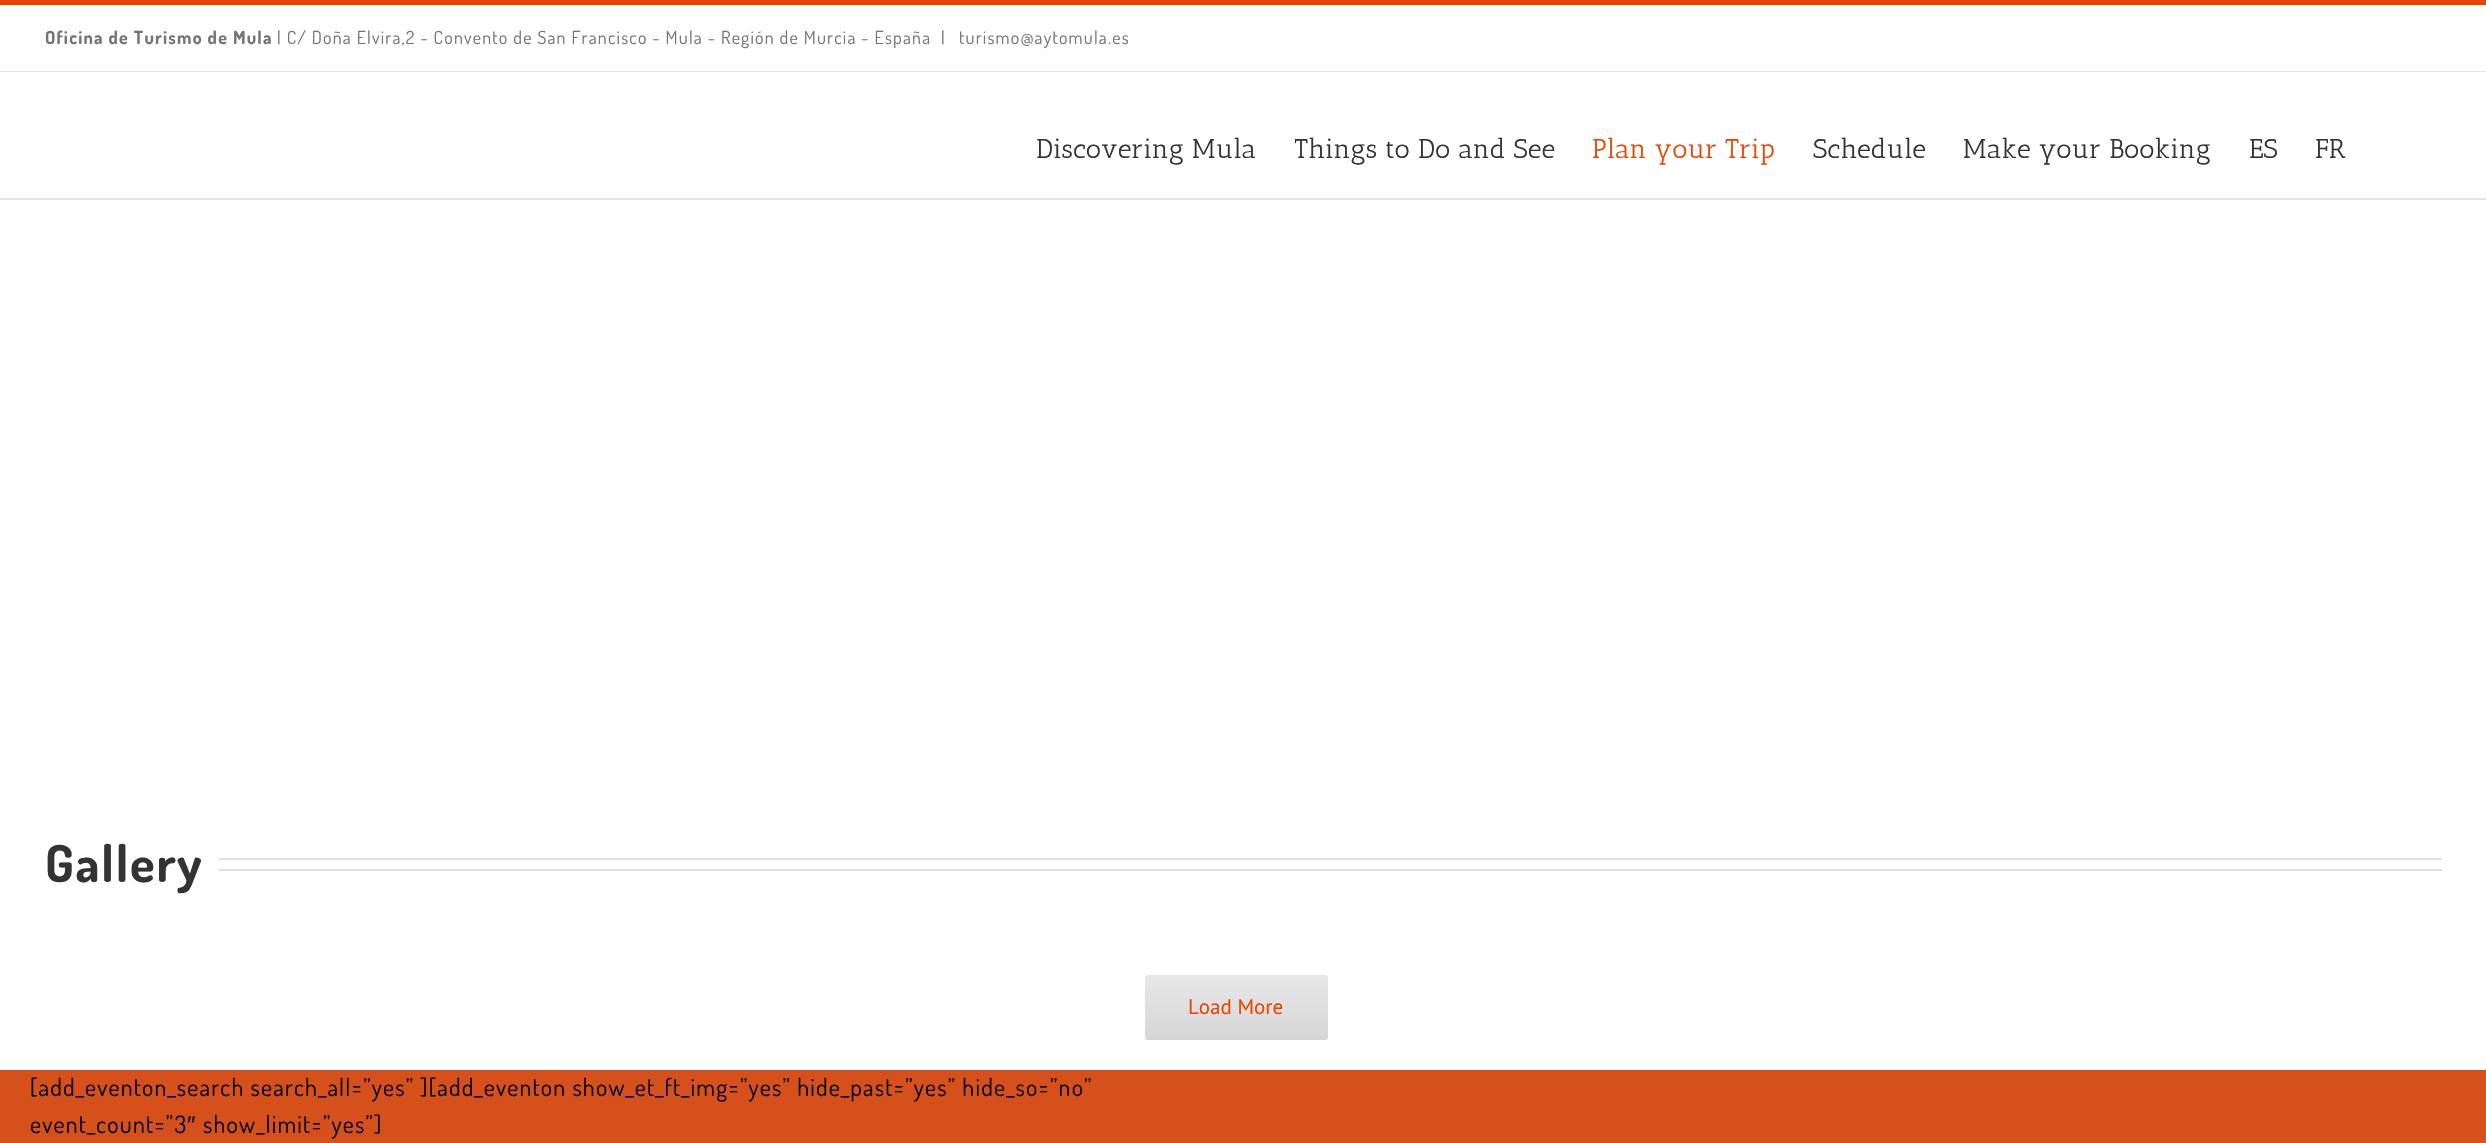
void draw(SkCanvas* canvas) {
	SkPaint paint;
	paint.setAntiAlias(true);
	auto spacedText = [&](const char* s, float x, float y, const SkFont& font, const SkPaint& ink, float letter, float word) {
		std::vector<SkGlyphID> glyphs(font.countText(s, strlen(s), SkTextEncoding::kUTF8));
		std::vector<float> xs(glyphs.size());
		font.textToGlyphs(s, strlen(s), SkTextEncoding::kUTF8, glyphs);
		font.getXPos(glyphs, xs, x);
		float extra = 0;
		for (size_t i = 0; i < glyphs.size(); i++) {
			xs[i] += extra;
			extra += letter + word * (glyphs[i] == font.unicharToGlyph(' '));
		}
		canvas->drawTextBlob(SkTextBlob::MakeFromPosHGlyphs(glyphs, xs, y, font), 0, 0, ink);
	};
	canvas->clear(0xffffffff);
	paint.setColor(0xffe84600);
	canvas->drawRect(SkRect::MakeXYWH(0, 0, 2486, 5), paint);
	paint.setColor(0xffe5e5e5);
	canvas->drawRect(SkRect::MakeXYWH(0, 71, 2486, 1), paint);
	SkFont f1(fontMgr->matchFamilyStyle("Dosis", SkFontStyle::Bold()), 18);
	f1.setSubpixel(true);
	paint.setColor(0xff747474);
	spacedText("Oficina de Turismo de Mula", 45, 44, f1, paint, 1.2, 0);
	SkFont f2(fontMgr->matchFamilyStyle("Dosis", SkFontStyle::Normal()), 18);
	f2.setSubpixel(true);
	spacedText("| C/ Doña Elvira,2 - Convento de San Francisco - Mula - Región de Murcia - España", 277, 44, f2, paint, 1.2, 0);
	spacedText("|", 941, 44, f2, paint, 1.2, 0);
	spacedText("turismo@aytomula.es", 959, 44, f2, paint, 1.2, 0);
	paint.setColor(0xffe5e5e5);
	canvas->drawRect(SkRect::MakeXYWH(0, 198, 2486, 2), paint);
	SkFont f3(fontMgr->matchFamilyStyle("Antic Slab", SkFontStyle::Normal()), 27);
	f3.setSubpixel(true);
	paint.setColor(0xff333333);
	canvas->drawString("Discovering Mula", 1036, 158, f3, paint);
	canvas->save();
	canvas->clipRect(SkRect::MakeXYWH(1295, 99, 298, 99));
	canvas->drawString("Things to Do and See", 1294, 158, f3, paint);
	canvas->restore();
	paint.setColor(0xffe84600);
	canvas->drawString("Plan your Trip", 1592, 158, f3, paint);
	paint.setColor(0xff333333);
	canvas->drawString("Schedule", 1813, 158, f3, paint);
	canvas->drawString("Make your Booking", 1963, 158, f3, paint);
	canvas->drawString("ES", 2249, 158, f3, paint);
	canvas->drawString("FR", 2315, 158, f3, paint);
	SkFont f4(fontMgr->matchFamilyStyle("Dosis", SkFontStyle::Bold()), 51);
	f4.setSubpixel(true);
	spacedText("Gallery", 45, 882, f4, paint, 1.75, 0);
	paint.setColor(0xffe0dede);
	canvas->drawRect(SkRect::MakeXYWH(219, 858, 2223, 2), paint);
	canvas->drawRect(SkRect::MakeXYWH(219, 869, 2223, 2), paint);
	{
		const SkColor colors[] = {0xffe8e8e8, 0xffd6d6d6};
		const float stops[] = {0, 1};
		const SkPoint ends[] = {{1236, 975}, {1236, 1040}};
		paint.setShader(SkGradientShader::MakeLinear(ends, colors, stops, 2, SkTileMode::kClamp));
		paint.setAlpha(255);
	}
	canvas->drawRoundRect(SkRect::MakeXYWH(1145, 975, 183, 65), 3, 3, paint);
	SkFont f5(fontMgr->matchFamilyStyle("PT Sans", SkFontStyle::Normal()), 21);
	f5.setSubpixel(true);
	paint.setShader(nullptr);
	paint.setColor(0xffe84600);
	canvas->drawString("Load More", 1188, 1014, f5, paint);
	paint.setColor(0xffd6501b);
	canvas->drawRect(SkRect::MakeXYWH(0, 1070, 2486, 73), paint);
	SkFont f6(fontMgr->matchFamilyStyle("Dosis", SkFontStyle::Normal()), 24);
	f6.setSubpixel(true);
	paint.setColor(0xff000000);
	spacedText("[add_eventon_search search_all=”yes” ][add_eventon show_et_ft_img=”yes” hide_past=”yes” hide_so=”no”", 30, 1096, f6, paint, 1.2, 0);
	spacedText("event_count=”3", 30, 1133, f6, paint, 1.2, 0);
	SkFont f7(fontMgr->matchFamilyStyle("Liberation Sans", SkFontStyle::Normal()), 24);
	f7.setSubpixel(true);
	spacedText("″", 187, 1133, f7, paint, 1.2, 0);
	spacedText("show_limit=”yes”]", 203, 1133, f6, paint, 1.2, 0);
}
